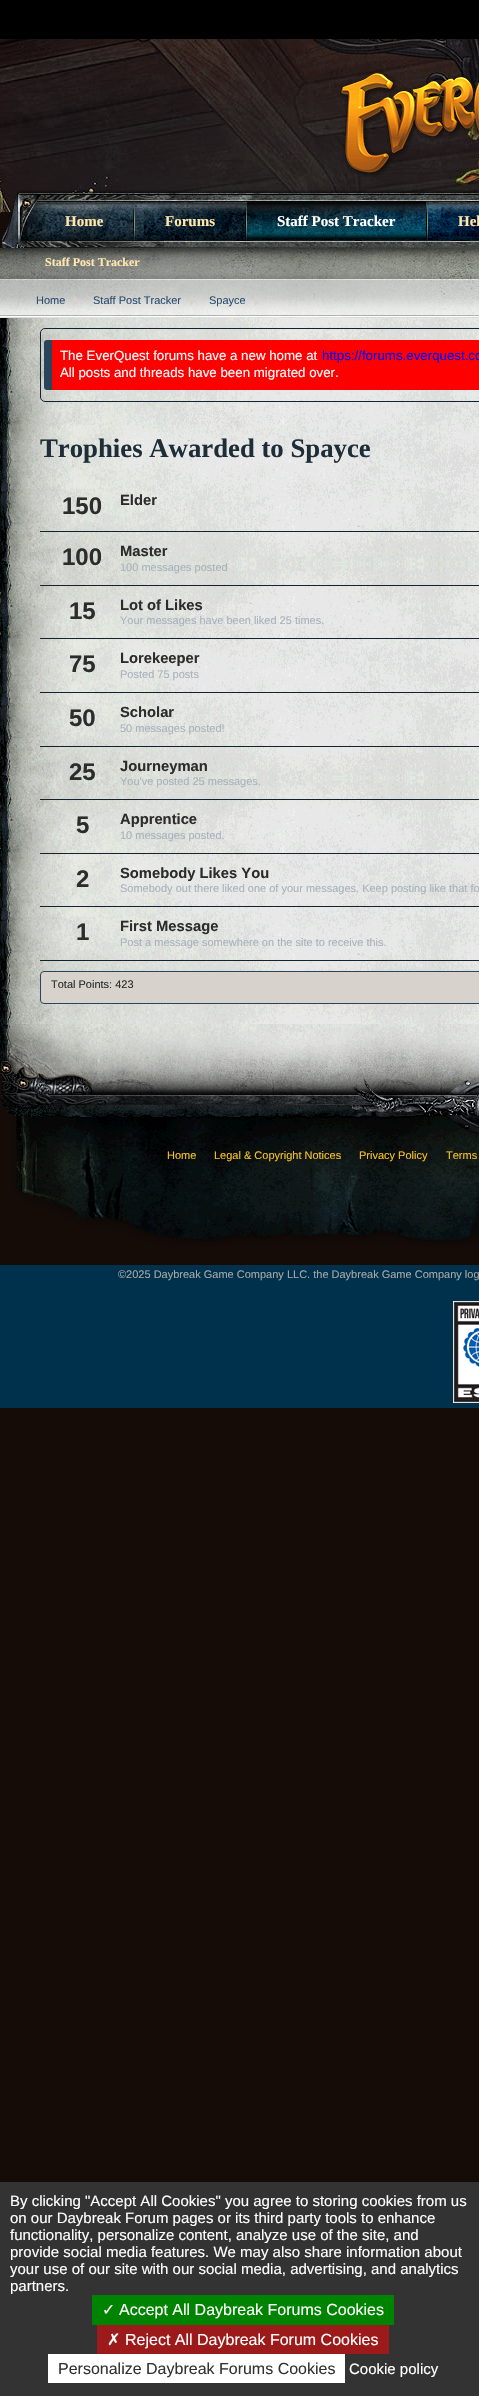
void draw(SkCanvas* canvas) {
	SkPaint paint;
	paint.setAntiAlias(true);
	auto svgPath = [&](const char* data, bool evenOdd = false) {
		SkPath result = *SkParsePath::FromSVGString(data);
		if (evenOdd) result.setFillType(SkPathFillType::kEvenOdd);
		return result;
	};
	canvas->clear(0xff150c08);
	canvas->drawImageRect(SkImages::DeferredFromEncodedData(SkData::MakeFromFileName("img1.png")), SkRect::MakeXYWH(0, 39, 479, 981), SkSamplingOptions());
	canvas->drawImageRect(SkImages::DeferredFromEncodedData(SkData::MakeFromFileName("img2.png")), SkRect::MakeXYWH(0, 248, 479, 71), SkSamplingOptions());
	paint.setColor(0xff000000);
	canvas->drawRect(SkRect::MakeXYWH(0, 0, 479, 39), paint);
	canvas->drawImageRect(SkImages::DeferredFromEncodedData(SkData::MakeFromFileName("img3.png")), SkRect::MakeXYWH(339, 71, 140, 106), SkSamplingOptions());
	canvas->drawImageRect(SkImages::DeferredFromEncodedData(SkData::MakeFromFileName("img4.png")), SkRect::MakeXYWH(2, 189, 477, 59), SkSamplingOptions());
	canvas->drawImageRect(SkImages::DeferredFromEncodedData(SkData::MakeFromFileName("img5.png")), SkRect::MakeXYWH(426, 207, 2, 35), SkSamplingOptions());
	canvas->drawImageRect(SkImages::DeferredFromEncodedData(SkData::MakeFromFileName("img6.png")), SkRect::MakeXYWH(247, 201, 179, 38), SkSamplingOptions());
	SkFont f1(fontMgr->matchFamilyStyle("Liberation Serif", SkFontStyle::Bold()), 15);
	f1.setSubpixel(true);
	paint.setColor(0xffffffff);
	canvas->drawString("Staff Post Tracker", 277, 226, f1, paint);
	SkFont f2(fontMgr->matchFamilyStyle("Liberation Serif", SkFontStyle::Bold()), 12);
	f2.setSubpixel(true);
	paint.setColor(0xfffee6ad);
	canvas->drawString("Staff Post Tracker", 45, 266, f2, paint);
	canvas->drawString("Hel", 458, 226, f1, paint);
	canvas->drawImageRect(SkImages::DeferredFromEncodedData(SkData::MakeFromFileName("img7.png")), SkRect::MakeXYWH(133, 207, 2, 35), SkSamplingOptions());
	canvas->drawString("Home", 65, 226, f1, paint);
	canvas->drawImageRect(SkImages::DeferredFromEncodedData(SkData::MakeFromFileName("img8.png")), SkRect::MakeXYWH(245, 207, 2, 35), SkSamplingOptions());
	canvas->drawString("Forums", 165, 226, f1, paint);
	SkFont f3(fontMgr->matchFamilyStyle("Liberation Sans", SkFontStyle::Normal()), 11);
	f3.setSubpixel(true);
	paint.setColor(0xff2b4e6e);
	canvas->drawString("Home", 36, 304, f3, paint);
	paint.setColor(0xffd7d3cc);
	canvas->drawPath(svgPath("M74 306V296L79 301Z"), paint);
	paint.setColor(0xff2b4e6e);
	canvas->drawString("Staff Post Tracker", 93, 304, f3, paint);
	paint.setColor(0xffd7d3cc);
	canvas->drawPath(svgPath("M190 306V296L195 301Z"), paint);
	paint.setColor(0xff2b4e6e);
	canvas->drawString("Spayce", 209, 304, f3, paint);
	paint.setColor(0xffd7d3cc);
	canvas->drawPath(svgPath("M255 306V296L260 301Z"), paint);
	canvas->drawImageRect(SkImages::DeferredFromEncodedData(SkData::MakeFromFileName("img9.png")), SkRect::MakeXYWH(0, 318, 479, 706), SkSamplingOptions());
	paint.setStroke(true);
	paint.setStrokeWidth(1);
	paint.setColor(0xff12232f);
	canvas->drawRoundRect(SkRect::MakeXYWH(40.5, 328.5, 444, 73), 4.5, 4.5, paint);
	paint.setStroke(false);
	paint.setColor(0xff29445b);
	canvas->drawRoundRect(SkRect::MakeXYWH(44, 340, 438, 50), 3, 3, paint);
	paint.setColor(0xffff0000);
	canvas->drawRect(SkRect::MakeXYWH(52, 340, 427, 50), paint);
	SkFont f4(fontMgr->matchFamilyStyle("Liberation Sans", SkFontStyle::Normal()), 13.3);
	f4.setSubpixel(true);
	paint.setColor(0xffffffff);
	canvas->drawString("The EverQuest forums have a new home at", 60, 360, f4, paint);
	paint.setColor(0xff0000ff);
	canvas->drawString("https://forums.everquest.co", 322, 360, f4, paint);
	paint.setColor(0xffffffff);
	canvas->drawString("All posts and threads have been migrated over.", 60, 377, f4, paint);
	SkFont f5(fontMgr->matchFamilyStyle("Liberation Serif", SkFontStyle::Bold()), 26.75);
	f5.setSubpixel(true);
	paint.setColor(0xff1e2e39);
	canvas->drawString("Trophies Awarded to Spayce", 40, 457, f5, paint);
	paint.setColor(0xff12232f);
	canvas->drawRect(SkRect::MakeXYWH(40, 531, 439, 1), paint);
	SkFont f6(fontMgr->matchFamilyStyle("Liberation Sans", SkFontStyle::Bold()), 24);
	f6.setSubpixel(true);
	paint.setColor(0xff2c2c2b);
	canvas->drawString("150", 62, 514, f6, paint);
	SkFont f7(fontMgr->matchFamilyStyle("Liberation Sans", SkFontStyle::Bold()), 14.75);
	f7.setSubpixel(true);
	canvas->drawString("Elder", 120, 505, f7, paint);
	paint.setColor(0xff12232f);
	canvas->drawRect(SkRect::MakeXYWH(40, 585, 439, 1), paint);
	paint.setColor(0xff2c2c2b);
	canvas->drawString("100", 62, 565, f6, paint);
	canvas->drawString("Master", 120, 556, f7, paint);
	paint.setColor(0xffa7b2bb);
	canvas->drawString("100 messages posted", 120, 571, f3, paint);
	paint.setColor(0xff12232f);
	canvas->drawRect(SkRect::MakeXYWH(40, 638, 439, 1), paint);
	paint.setColor(0xff2c2c2b);
	canvas->drawString("15", 69, 619, f6, paint);
	canvas->drawString("Lot of Likes", 120, 610, f7, paint);
	paint.setColor(0xffa7b2bb);
	canvas->drawString("Your messages have been liked 25 times.", 120, 624, f3, paint);
	paint.setColor(0xff12232f);
	canvas->drawRect(SkRect::MakeXYWH(40, 692, 439, 1), paint);
	paint.setColor(0xff2c2c2b);
	canvas->drawString("75", 69, 672, f6, paint);
	canvas->drawString("Lorekeeper", 120, 663, f7, paint);
	paint.setColor(0xffa7b2bb);
	canvas->drawString("Posted 75 posts", 120, 678, f3, paint);
	paint.setColor(0xff12232f);
	canvas->drawRect(SkRect::MakeXYWH(40, 746, 439, 1), paint);
	paint.setColor(0xff2c2c2b);
	canvas->drawString("50", 69, 726, f6, paint);
	canvas->drawString("Scholar", 120, 717, f7, paint);
	paint.setColor(0xffa7b2bb);
	canvas->drawString("50 messages posted!", 120, 732, f3, paint);
	paint.setColor(0xff12232f);
	canvas->drawRect(SkRect::MakeXYWH(40, 799, 439, 1), paint);
	paint.setColor(0xff2c2c2b);
	canvas->drawString("25", 69, 780, f6, paint);
	canvas->drawString("Journeyman", 120, 771, f7, paint);
	paint.setColor(0xffa7b2bb);
	canvas->drawString("You've posted 25 messages.", 120, 785, f3, paint);
	paint.setColor(0xff12232f);
	canvas->drawRect(SkRect::MakeXYWH(40, 853, 439, 1), paint);
	paint.setColor(0xff2c2c2b);
	canvas->drawString("5", 76, 833, f6, paint);
	canvas->drawString("Apprentice", 120, 824, f7, paint);
	paint.setColor(0xffa7b2bb);
	canvas->drawString("10 messages posted.", 120, 839, f3, paint);
	paint.setColor(0xff12232f);
	canvas->drawRect(SkRect::MakeXYWH(40, 906, 439, 1), paint);
	paint.setColor(0xff2c2c2b);
	canvas->drawString("2", 76, 887, f6, paint);
	canvas->drawString("Somebody Likes You", 120, 878, f7, paint);
	paint.setColor(0xffa7b2bb);
	canvas->drawString("Somebody out there liked one of your messages. Keep posting like that fo", 120, 892, f3, paint);
	paint.setColor(0xff12232f);
	canvas->drawRect(SkRect::MakeXYWH(40, 960, 439, 1), paint);
	paint.setColor(0xff2c2c2b);
	canvas->drawString("1", 76, 940, f6, paint);
	canvas->drawString("First Message", 120, 931, f7, paint);
	paint.setColor(0xffa7b2bb);
	canvas->drawString("Post a message somewhere on the site to receive this.", 120, 946, f3, paint);
	paint.setColor(0xffd7d3cc);
	canvas->drawRoundRect(SkRect::MakeXYWH(40.5, 971.5, 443, 32), 3.5, 3.5, paint);
	paint.setStroke(true);
	paint.setColor(0xff29445b);
	canvas->drawRoundRect(SkRect::MakeXYWH(40.5, 971.5, 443, 32), 3.5, 3.5, paint);
	paint.setStroke(false);
	paint.setColor(0xff2c2c2b);
	canvas->drawString("Total Points: 423", 51, 988, f3, paint);
	canvas->drawImageRect(SkImages::DeferredFromEncodedData(SkData::MakeFromFileName("img10.png")), SkRect::MakeXYWH(0, 1024, 479, 222), SkSamplingOptions());
	paint.setColor(0xfff8c227);
	canvas->drawString("Home", 167, 1159, f3, paint);
	canvas->drawString("Legal & Copyright Notices", 214, 1159, f3, paint);
	canvas->drawString("Privacy Policy", 359, 1159, f3, paint);
	canvas->drawString("Terms", 446, 1159, f3, paint);
	paint.setColor(0xff00314c);
	canvas->drawRect(SkRect::MakeXYWH(0, 1265, 479, 143), paint);
	paint.setColor(0xffa7a7a7);
	canvas->drawString("©2025 Daybreak Game Company LLC. the Daybreak Game Company log", 118, 1278, f3, paint);
	canvas->drawImageRect(SkImages::DeferredFromEncodedData(SkData::MakeFromFileName("img11.png")), SkRect::MakeXYWH(453, 1301, 26, 102), SkSamplingOptions());
	paint.setColor(0xff333333);
	canvas->drawRect(SkRect::MakeXYWH(0, 2182, 479, 214), paint);
	SkFont f8(fontMgr->matchFamilyStyle("Liberation Sans", SkFontStyle::Normal()), 15);
	f8.setSubpixel(true);
	paint.setColor(0xffffffff);
	canvas->drawString("By clicking \"Accept All Cookies\" you agree to storing cookies from us", 10, 2206, f8, paint);
	canvas->drawString("on our Daybreak Forum pages or its third party tools to enhance", 10, 2223, f8, paint);
	canvas->drawString("functionality, personalize content, analyze use of the site, and", 10, 2240, f8, paint);
	canvas->drawString("provide social media features. We may also share information about", 10, 2257, f8, paint);
	canvas->drawString("your use of our site with our social media, advertising, and analytics", 10, 2274, f8, paint);
	canvas->drawString("partners.", 10, 2291, f8, paint);
	paint.setColor(0xff008300);
	canvas->drawRect(SkRect::MakeXYWH(92, 2295, 302, 30), paint);
	SkFont f9(fontMgr->matchFamilyStyle("DejaVu Sans", SkFontStyle::Normal()), 16);
	f9.setSubpixel(true);
	paint.setColor(0xffffffff);
	canvas->drawString("✓", 102, 2315, f9, paint);
	SkFont f10(fontMgr->matchFamilyStyle("Liberation Sans", SkFontStyle::Normal()), 16);
	f10.setSubpixel(true);
	canvas->drawString("Accept All Daybreak Forums Cookies", 119, 2315, f10, paint);
	paint.setColor(0xff9c1a1a);
	canvas->drawRect(SkRect::MakeXYWH(97, 2325, 292, 29), paint);
	paint.setColor(0xffffffff);
	canvas->drawString("✗", 107, 2345, f9, paint);
	canvas->drawString("Reject All Daybreak Forum Cookies", 125, 2345, f10, paint);
	canvas->drawRect(SkRect::MakeXYWH(48, 2354, 297, 29), paint);
	paint.setColor(0xff333333);
	canvas->drawString("Personalize Daybreak Forums Cookies", 58, 2374, f10, paint);
	paint.setColor(0xffffffff);
	canvas->drawString("Cookie policy", 349, 2374, f8, paint);
}
